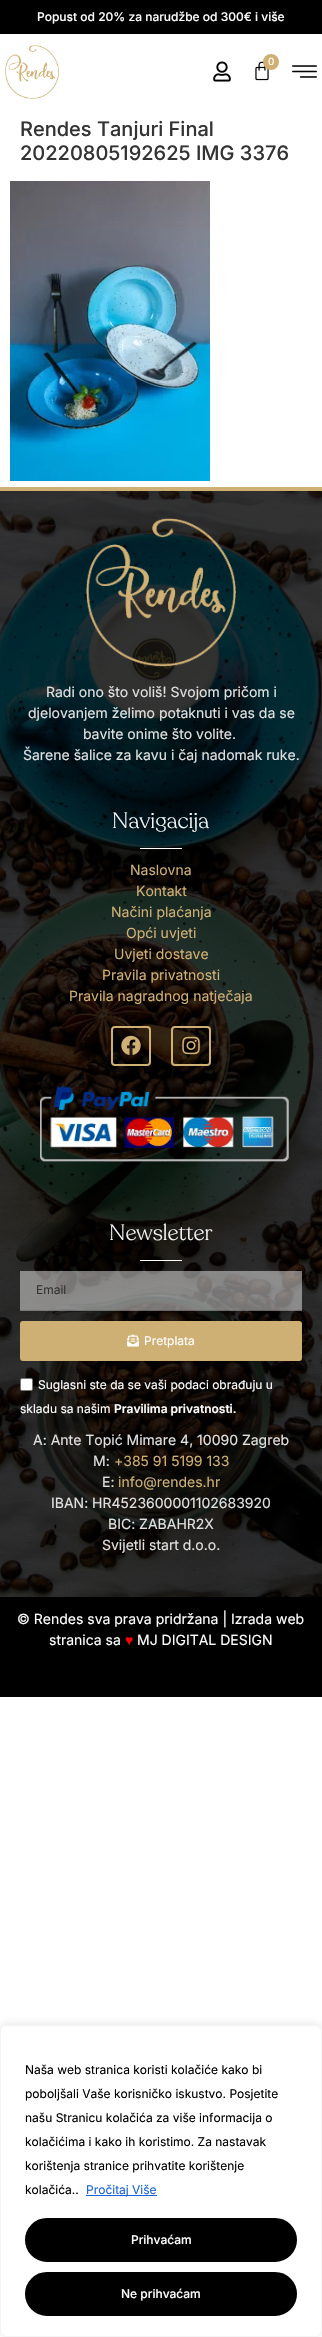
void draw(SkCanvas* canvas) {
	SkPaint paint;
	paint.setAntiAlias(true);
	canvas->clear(0xffffffff);
	paint.setColor(0xff000000);
	canvas->drawRect(SkRect::MakeXYWH(0, 0, 322, 34), paint);
	SkFont f1(fontMgr->matchFamilyStyle("Inter", SkFontStyle(500, SkFontStyle::kNormal_Width, SkFontStyle::kUpright_Slant)), 12);
	f1.setSubpixel(true);
	paint.setColor(0xffffffff);
	canvas->drawString("Popust od 20% za narudžbe od 300€ i više", 37, 21, f1, paint);
	canvas->drawImageRect(SkImages::DeferredFromEncodedData(SkData::MakeFromFileName("img1.png")), SkRect::MakeXYWH(5, 45, 54, 54), SkSamplingOptions());
	canvas->drawImageRect(SkImages::DeferredFromEncodedData(SkData::MakeFromFileName("img2.png")), SkRect::MakeXYWH(213, 61, 18, 21), SkSamplingOptions());
	canvas->drawImageRect(SkImages::DeferredFromEncodedData(SkData::MakeFromFileName("img3.png")), SkRect::MakeXYWH(255, 61, 14, 20), SkSamplingOptions());
	paint.setColor(0xffcfb074);
	canvas->drawCircle(271, 62, 8, paint);
	SkFont f2(fontMgr->matchFamilyStyle("Inter", SkFontStyle::Normal()), 10);
	f2.setSubpixel(true);
	paint.setColor(0xffffffff);
	canvas->drawString("0", 268, 65, f2, paint);
	canvas->drawImageRect(SkImages::DeferredFromEncodedData(SkData::MakeFromFileName("img4.png")), SkRect::MakeXYWH(292, 65, 25, 13), SkSamplingOptions());
	SkFont f3(fontMgr->matchFamilyStyle("Inter", SkFontStyle(500, SkFontStyle::kNormal_Width, SkFontStyle::kUpright_Slant)), 20);
	f3.setSubpixel(true);
	paint.setColor(0xff333333);
	canvas->drawString("Rendes Tanjuri Final", 20, 136, f3, paint);
	canvas->drawString("20220805192625 IMG 3376", 20, 160, f3, paint);
	canvas->drawImageRect(SkImages::DeferredFromEncodedData(SkData::MakeFromFileName("img5.png")), SkRect::MakeXYWH(10, 181, 200, 300), SkSamplingOptions());
	canvas->drawImageRect(SkImages::DeferredFromEncodedData(SkData::MakeFromFileName("img6.png")), SkRect::MakeXYWH(0, 491, 322, 1106), SkSamplingOptions());
	paint.setColor(0xffcfb074);
	canvas->drawRect(SkRect::MakeXYWH(0, 487, 322, 4), paint);
	canvas->drawImageRect(SkImages::DeferredFromEncodedData(SkData::MakeFromFileName("img7.png")), SkRect::MakeXYWH(86, 518, 150, 149), SkSamplingOptions());
	SkFont f4(fontMgr->matchFamilyStyle("Inter", SkFontStyle::Normal()), 14);
	f4.setSubpixel(true);
	paint.setColor(0xffe0e0e0);
	canvas->drawString("Radi ono što voliš! Svojom pričom i", 46, 697, f4, paint);
	canvas->drawString("djelovanjem želimo potaknuti i vas da se", 28, 718, f4, paint);
	canvas->drawString("bavite onime što volite.", 83, 739, f4, paint);
	canvas->drawString("Šarene šalice za kavu i čaj nadomak ruke.", 23, 760, f4, paint);
	SkFont f5(fontMgr->matchFamilyStyle("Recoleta", SkFontStyle(300, SkFontStyle::kNormal_Width, SkFontStyle::kUpright_Slant)), 22);
	f5.setSubpixel(true);
	paint.setColor(0xffffffff);
	canvas->drawString("Navigacija", 112, 828, f5, paint);
	canvas->drawRect(SkRect::MakeXYWH(140, 848, 42, 1), paint);
	paint.setColor(0xffcfb074);
	canvas->drawString("Naslovna", 130, 875, f4, paint);
	canvas->drawString("Kontakt", 136, 896, f4, paint);
	canvas->drawString("Načini plaćanja", 111, 917, f4, paint);
	canvas->drawString("Opći uvjeti", 126, 938, f4, paint);
	canvas->drawString("Uvjeti dostave", 114, 959, f4, paint);
	canvas->drawString("Pravila privatnosti", 102, 980, f4, paint);
	canvas->drawString("Pravila nagradnog natječaja", 69, 1001, f4, paint);
	paint.setStroke(true);
	paint.setStrokeWidth(2);
	canvas->drawRoundRect(SkRect::MakeXYWH(112, 1027, 38, 38), 3, 3, paint);
	canvas->drawImageRect(SkImages::DeferredFromEncodedData(SkData::MakeFromFileName("img8.png")), SkRect::MakeXYWH(121, 1035, 20, 20), SkSamplingOptions());
	canvas->drawRoundRect(SkRect::MakeXYWH(172, 1027, 38, 38), 3, 3, paint);
	canvas->drawImageRect(SkImages::DeferredFromEncodedData(SkData::MakeFromFileName("img9.png")), SkRect::MakeXYWH(182, 1036, 18, 19), SkSamplingOptions());
	canvas->drawImageRect(SkImages::DeferredFromEncodedData(SkData::MakeFromFileName("img10.png")), SkRect::MakeXYWH(40, 1086, 249, 76), SkSamplingOptions());
	paint.setStroke(false);
	paint.setColor(0xffffffff);
	canvas->drawString("Newsletter", 109, 1240, f5, paint);
	canvas->drawRect(SkRect::MakeXYWH(140, 1260, 42, 1), paint);
	paint.setColor(0x75ffffff);
	canvas->drawRect(SkRect::MakeXYWH(20, 1271, 282, 40), paint);
	paint.setColor(0x24000000);
	canvas->drawRect(SkRect::MakeXYWH(20, 1310, 282, 1), paint);
	SkFont f6(fontMgr->matchFamilyStyle("Inter", SkFontStyle::Normal()), 12);
	f6.setSubpixel(true);
	paint.setColor(0xff333333);
	canvas->drawString("Email", 36, 1294, f6, paint);
	paint.setColor(0xffcfb074);
	canvas->drawRoundRect(SkRect::MakeXYWH(20, 1321, 282, 40), 3, 3, paint);
	canvas->drawImageRect(SkImages::DeferredFromEncodedData(SkData::MakeFromFileName("img11.png")), SkRect::MakeXYWH(127, 1334, 12, 13), SkSamplingOptions());
	paint.setColor(0xffffffff);
	canvas->drawString("Pretplata", 144, 1345, f6, paint);
	canvas->drawRoundRect(SkRect::MakeXYWH(20.5, 1378.5, 12, 12), 1.5, 1.5, paint);
	paint.setStroke(true);
	paint.setStrokeWidth(1);
	paint.setColor(0xff767676);
	canvas->drawRoundRect(SkRect::MakeXYWH(20.5, 1378.5, 12, 12), 1.5, 1.5, paint);
	paint.setStroke(false);
	paint.setColor(0xffffffff);
	canvas->drawString("Suglasni ste da se vaši podaci obrađuju u", 38, 1389, f6, paint);
	canvas->drawString("skladu sa našim", 20, 1413, f6, paint);
	SkFont f7(fontMgr->matchFamilyStyle("Inter", SkFontStyle(600, SkFontStyle::kNormal_Width, SkFontStyle::kUpright_Slant)), 12);
	f7.setSubpixel(true);
	canvas->drawString("Pravilima privatnosti.", 114, 1413, f7, paint);
	paint.setColor(0xffe0e0e0);
	canvas->drawString("A: Ante Topić Mimare 4, 10090 Zagreb", 33, 1445, f4, paint);
	canvas->drawString("M:", 93, 1466, f4, paint);
	paint.setColor(0xffcfb074);
	canvas->drawString("+385 91 5199 133", 114, 1466, f4, paint);
	paint.setColor(0xffe0e0e0);
	canvas->drawString("E:", 102, 1487, f4, paint);
	paint.setColor(0xffcfb074);
	canvas->drawString("info@rendes.hr", 118, 1487, f4, paint);
	paint.setColor(0xffe0e0e0);
	canvas->drawString("IBAN: HR4523600001102683920", 51, 1508, f4, paint);
	canvas->drawString("BIC: ZABAHR2X", 108, 1529, f4, paint);
	canvas->drawString("Svijetli start d.o.o.", 102, 1550, f4, paint);
	paint.setColor(0xff000000);
	canvas->drawRect(SkRect::MakeXYWH(0, 1597, 322, 100), paint);
	paint.setColor(0xffffffff);
	canvas->drawString("© Rendes sva prava pridržana | Izrada web", 17, 1624, f4, paint);
	canvas->drawString("stranica sa", 49, 1645, f4, paint);
	SkFont f8(fontMgr->matchFamilyStyle("Liberation Sans", SkFontStyle::Normal()), 14);
	f8.setSubpixel(true);
	paint.setColor(0xffff0000);
	canvas->drawString("♥", 125, 1645, f8, paint);
	paint.setColor(0xffffffff);
	canvas->drawString("MJ DIGITAL DESIGN", 137, 1645, f4, paint);
	paint.setColor(0x4dacabab);
	paint.setMaskFilter(SkMaskFilter::MakeBlur(kNormal_SkBlurStyle, 5));
	canvas->drawRoundRect(SkRect::MakeXYWH(0, 2024, 322, 312), 6, 6, paint);
	paint.setMaskFilter(nullptr);
	paint.setColor(0xffffffff);
	canvas->drawRoundRect(SkRect::MakeXYWH(0.5, 2025.5, 321, 311), 5.5, 5.5, paint);
	paint.setStroke(true);
	paint.setColor(0xfff4f4f4);
	canvas->drawRoundRect(SkRect::MakeXYWH(0.5, 2025.5, 321, 311), 5.5, 5.5, paint);
	paint.setStroke(false);
	paint.setColor(0xff000000);
	canvas->drawString("Naša web stranica koristi kolačiće kako bi", 25, 2074, f6, paint);
	canvas->drawString("poboljšali Vaše korisničko iskustvo. Posjetite", 25, 2098, f6, paint);
	canvas->drawString("našu Stranicu kolačića za više informacija o", 25, 2122, f6, paint);
	canvas->drawString("kolačićima i kako ih koristimo. Za nastavak", 25, 2146, f6, paint);
	canvas->drawString("korištenja stranice prihvatite korištenje", 25, 2170, f6, paint);
	canvas->drawString("kolačića..", 25, 2194, f6, paint);
	paint.setColor(0xff1863dc);
	canvas->drawRect(SkRect::MakeXYWH(86, 2195, 71, 1), paint);
	canvas->drawString("Pročitaj Više", 86, 2194, f6, paint);
	paint.setColor(0xff000000);
	canvas->drawRoundRect(SkRect::MakeXYWH(26, 2219, 270, 42), 21, 21, paint);
	paint.setStroke(true);
	paint.setStrokeWidth(2);
	canvas->drawRoundRect(SkRect::MakeXYWH(26, 2219, 270, 42), 21, 21, paint);
	paint.setStroke(false);
	paint.setColor(0xffffffff);
	canvas->drawString("Prihvaćam", 131, 2244, f1, paint);
	paint.setColor(0xff000000);
	canvas->drawRoundRect(SkRect::MakeXYWH(26, 2273, 270, 42), 21, 21, paint);
	paint.setStroke(true);
	canvas->drawRoundRect(SkRect::MakeXYWH(26, 2273, 270, 42), 21, 21, paint);
	paint.setStroke(false);
	paint.setColor(0xffffffff);
	canvas->drawString("Ne prihvaćam", 121, 2298, f1, paint);
}
